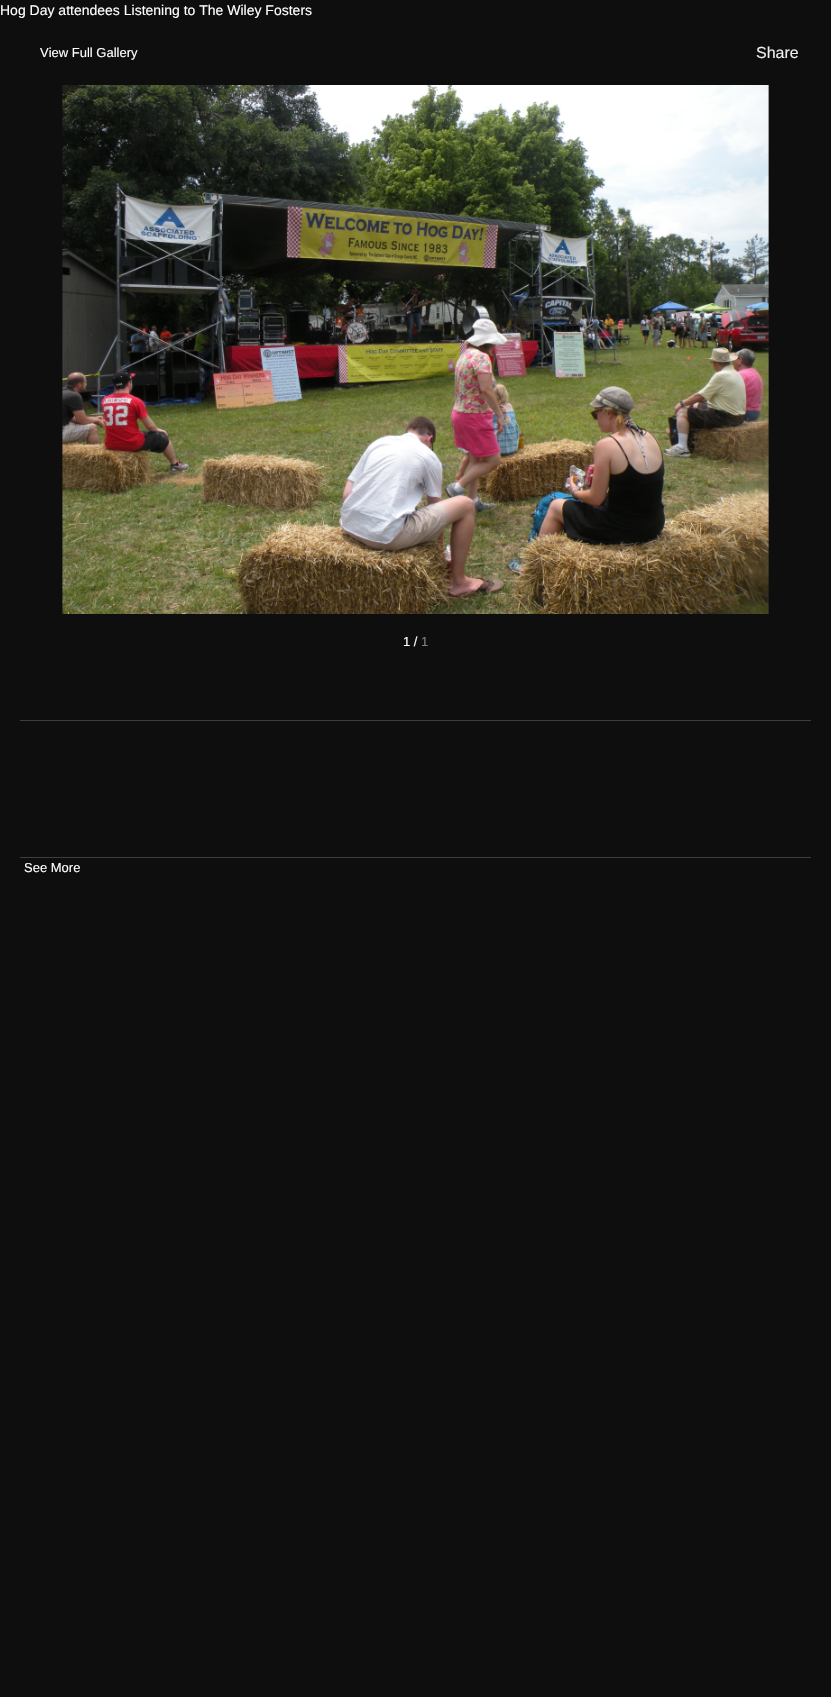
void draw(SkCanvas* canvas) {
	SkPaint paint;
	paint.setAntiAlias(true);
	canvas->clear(0xff0e0e0e);
	SkFont f1(fontMgr->matchFamilyStyle("Liberation Sans", SkFontStyle::Normal()), 14);
	f1.setSubpixel(true);
	paint.setColor(0xffffffff);
	canvas->drawString("Hog Day attendees Listening to The Wiley Fosters", 0, 15, f1, paint);
	SkFont f2(fontMgr->matchFamilyStyle("Liberation Sans", SkFontStyle::Normal()), 13);
	f2.setSubpixel(true);
	canvas->drawString("View Full Gallery", 40, 57, f2, paint);
	SkFont f3(fontMgr->matchFamilyStyle("Liberation Sans", SkFontStyle::Normal()), 16);
	f3.setSubpixel(true);
	paint.setColor(0xffedeeed);
	canvas->drawString("Share", 756, 58, f3, paint);
	canvas->drawImageRect(SkImages::DeferredFromEncodedData(SkData::MakeFromFileName("img1.png")), SkRect::MakeXYWH(62, 85, 707, 529), SkSamplingOptions());
	paint.setColor(0xffffffff);
	canvas->drawString("1 /", 403, 646, f2, paint);
	paint.setColor(0xff808080);
	canvas->drawString("1", 421, 646, f2, paint);
	paint.setColor(0xff3e3e3e);
	canvas->drawRect(SkRect::MakeXYWH(20, 720, 791, 1), paint);
	canvas->drawRect(SkRect::MakeXYWH(20, 857, 791, 1), paint);
	paint.setColor(0xffffffff);
	canvas->drawString("See More", 24, 872, f2, paint);
}
